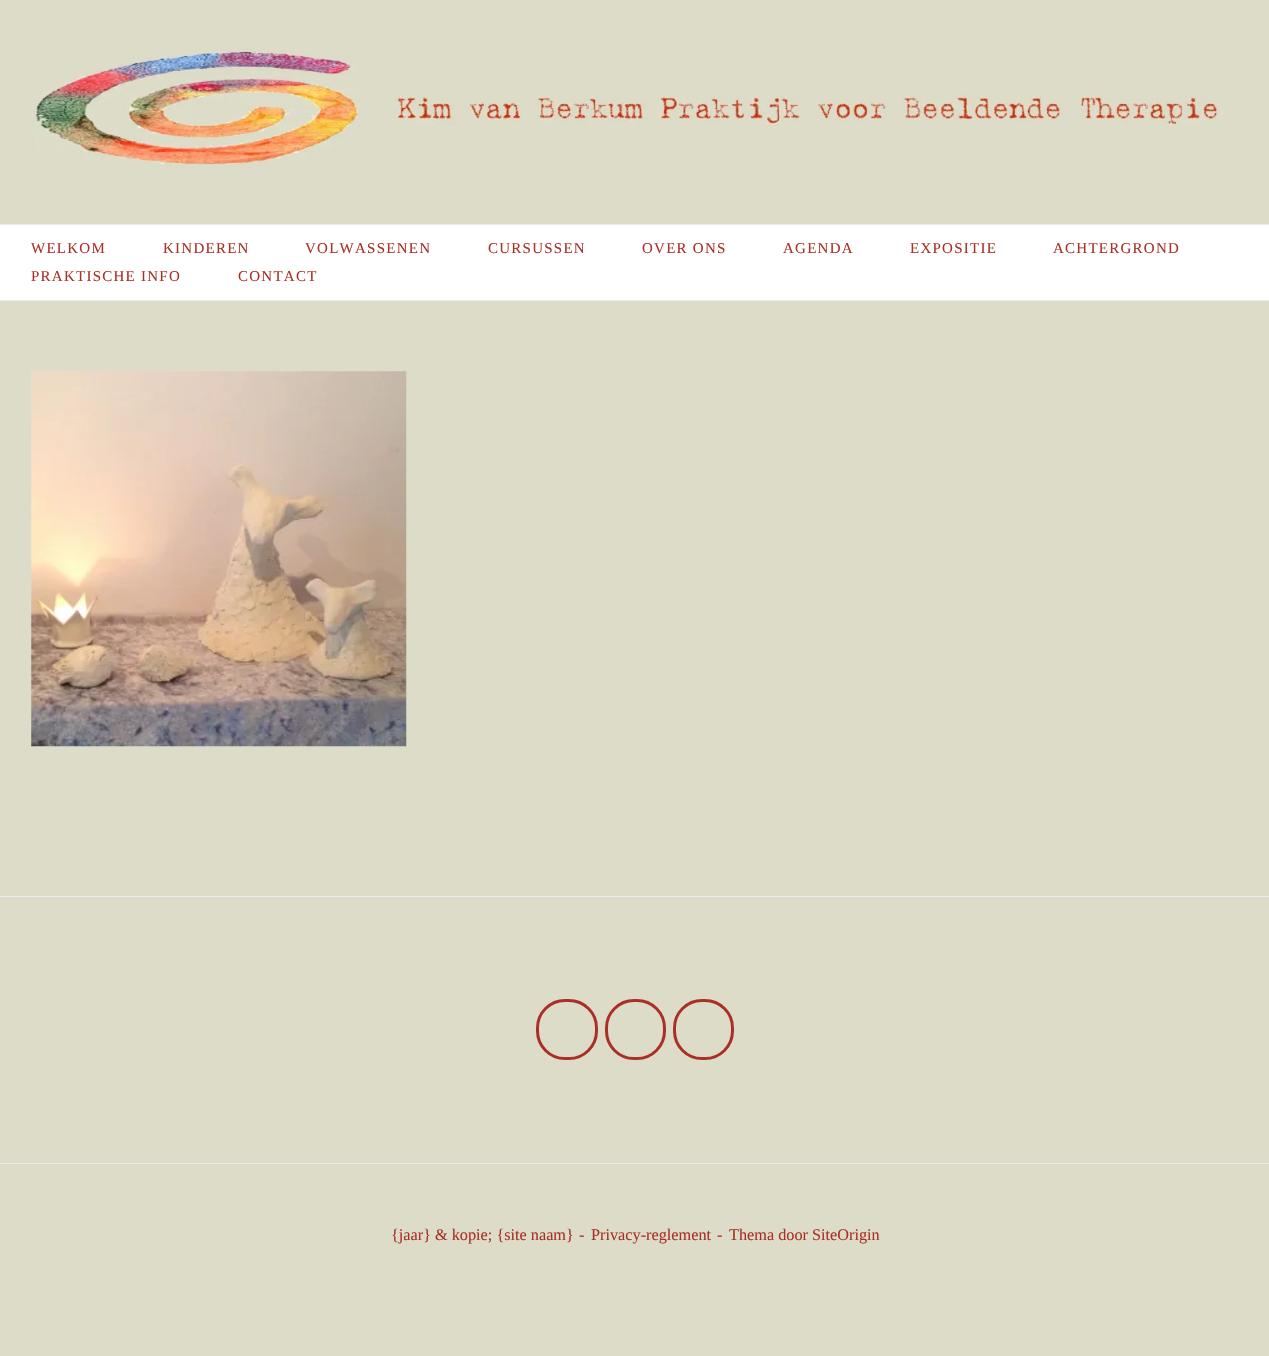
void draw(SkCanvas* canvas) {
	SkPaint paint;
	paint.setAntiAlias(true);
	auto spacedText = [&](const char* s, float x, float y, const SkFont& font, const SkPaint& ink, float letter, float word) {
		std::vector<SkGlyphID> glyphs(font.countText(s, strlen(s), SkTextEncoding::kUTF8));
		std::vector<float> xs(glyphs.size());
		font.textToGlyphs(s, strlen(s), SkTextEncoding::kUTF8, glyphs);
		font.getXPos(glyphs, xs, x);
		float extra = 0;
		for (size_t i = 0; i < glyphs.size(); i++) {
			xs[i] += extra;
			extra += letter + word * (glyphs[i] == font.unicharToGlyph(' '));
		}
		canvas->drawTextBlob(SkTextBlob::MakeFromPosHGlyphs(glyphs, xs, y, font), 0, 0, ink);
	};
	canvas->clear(0xffdddcc9);
	paint.setColor(0xffebebeb);
	canvas->drawRect(SkRect::MakeXYWH(0, 300, 1269, 1), paint);
	canvas->drawImageRect(SkImages::DeferredFromEncodedData(SkData::MakeFromFileName("img1.png")), SkRect::MakeXYWH(32, 48, 1188, 121), SkSamplingOptions());
	paint.setColor(0xffffffff);
	canvas->drawRect(SkRect::MakeXYWH(0, 225, 1269, 75), paint);
	paint.setColor(0xffebebeb);
	canvas->drawRect(SkRect::MakeXYWH(0, 224, 1269, 1), paint);
	SkFont f1(fontMgr->matchFamilyStyle("Liberation Serif", SkFontStyle::Normal()), 15);
	f1.setSubpixel(true);
	paint.setColor(0xffaa3027);
	spacedText("WELKOM", 31, 253, f1, paint, 1.25, 0);
	spacedText("KINDEREN", 163, 253, f1, paint, 1.25, 0);
	spacedText("VOLWASSENEN", 305, 253, f1, paint, 1.25, 0);
	spacedText("CURSUSSEN", 488, 253, f1, paint, 1.25, 0);
	spacedText("OVER ONS", 642, 253, f1, paint, 1.25, 0);
	spacedText("AGENDA", 783, 253, f1, paint, 1.25, 0);
	spacedText("EXPOSITIE", 910, 253, f1, paint, 1.25, 0);
	spacedText("ACHTERGROND", 1053, 253, f1, paint, 1.25, 0);
	spacedText("PRAKTISCHE INFO", 31, 281, f1, paint, 1.25, 0);
	spacedText("CONTACT", 238, 281, f1, paint, 1.25, 0);
	canvas->drawImageRect(SkImages::DeferredFromEncodedData(SkData::MakeFromFileName("img2.png")), SkRect::MakeXYWH(31, 371, 376, 376), SkSamplingOptions());
	paint.setColor(0xffebebeb);
	canvas->drawRect(SkRect::MakeXYWH(0, 896, 1269, 1), paint);
	paint.setStroke(true);
	paint.setStrokeWidth(3);
	paint.setColor(0xffaa3027);
	canvas->drawRoundRect(SkRect::MakeXYWH(537.5, 1000.5, 59, 58), 27.5, 27.5, paint);
	canvas->drawRoundRect(SkRect::MakeXYWH(606.5, 1000.5, 58, 58), 27.5, 27.5, paint);
	canvas->drawRoundRect(SkRect::MakeXYWH(674.5, 1000.5, 58, 58), 27.5, 27.5, paint);
	paint.setStroke(false);
	paint.setColor(0xffebebeb);
	canvas->drawRect(SkRect::MakeXYWH(0, 1163, 1269, 1), paint);
	SkFont f2(fontMgr->matchFamilyStyle("Liberation Serif", SkFontStyle::Normal()), 16.25);
	f2.setSubpixel(true);
	paint.setColor(0xffaa3027);
	canvas->drawString("{jaar} & kopie; {site naam}", 391, 1240, f2, paint);
	canvas->drawString("-", 579, 1240, f2, paint);
	canvas->drawString("Privacy-reglement", 591, 1240, f2, paint);
	canvas->drawString("-", 717, 1240, f2, paint);
	canvas->drawString("Thema door SiteOrigin", 729, 1240, f2, paint);
}
